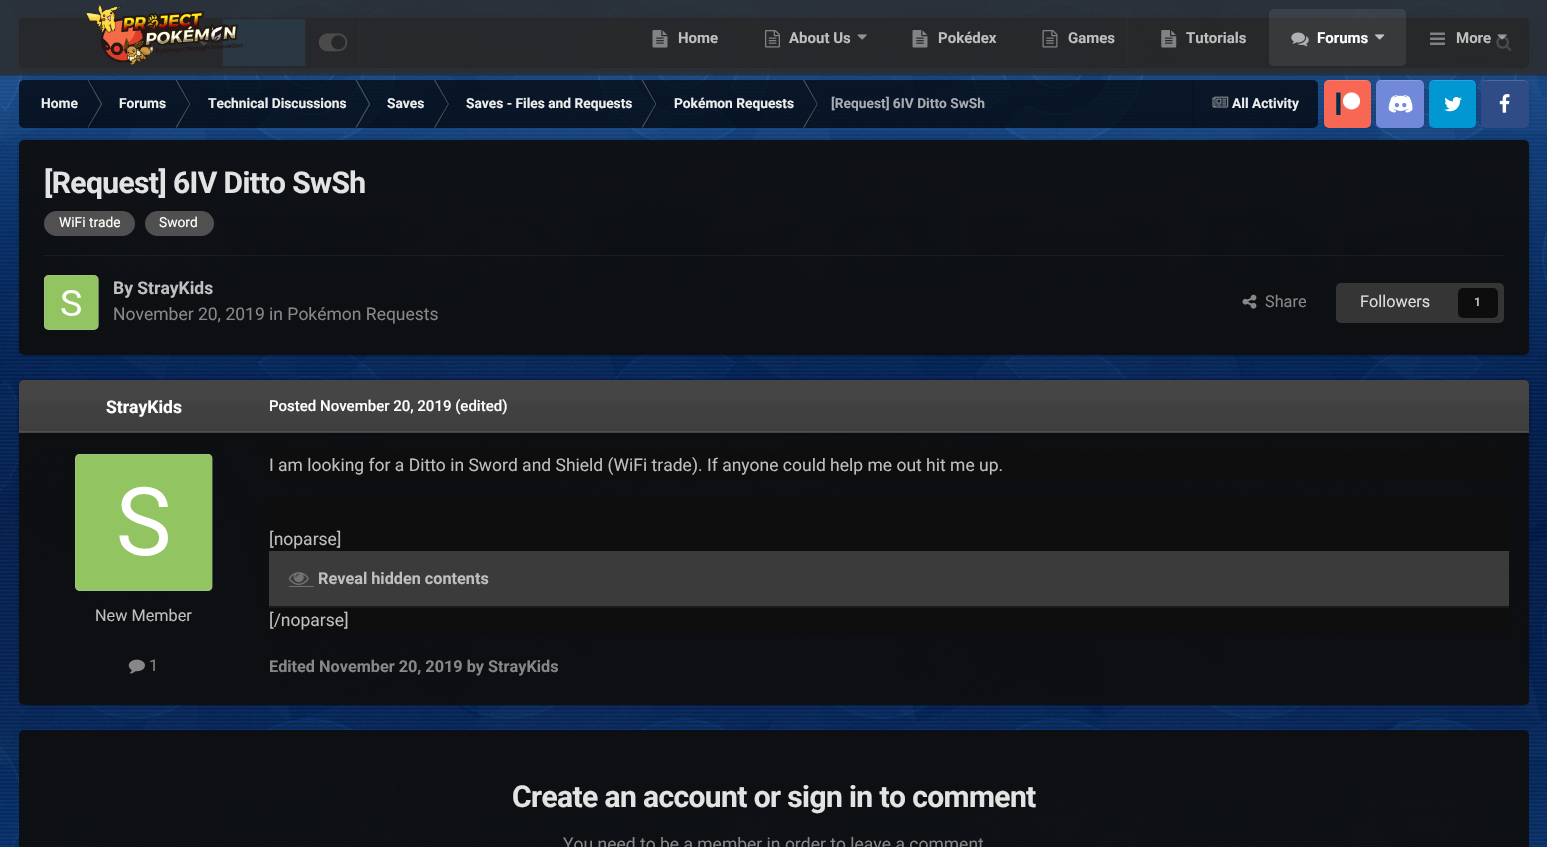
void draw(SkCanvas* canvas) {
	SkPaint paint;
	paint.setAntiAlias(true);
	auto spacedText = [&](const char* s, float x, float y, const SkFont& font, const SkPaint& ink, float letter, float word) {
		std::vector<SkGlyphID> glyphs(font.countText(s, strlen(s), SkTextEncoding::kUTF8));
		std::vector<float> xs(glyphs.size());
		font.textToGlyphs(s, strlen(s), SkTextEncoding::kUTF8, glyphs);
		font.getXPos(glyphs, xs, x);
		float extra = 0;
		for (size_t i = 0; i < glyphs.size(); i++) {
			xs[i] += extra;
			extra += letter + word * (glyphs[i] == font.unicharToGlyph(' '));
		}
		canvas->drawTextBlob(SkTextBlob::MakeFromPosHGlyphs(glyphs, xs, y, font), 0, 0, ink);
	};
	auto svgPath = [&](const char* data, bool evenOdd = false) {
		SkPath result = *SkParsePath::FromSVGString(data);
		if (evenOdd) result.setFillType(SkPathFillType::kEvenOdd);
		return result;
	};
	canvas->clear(0xffffffff);
	canvas->drawImageRect(SkImages::DeferredFromEncodedData(SkData::MakeFromFileName("img1.png")), SkRect::MakeXYWH(0, 0, 1547, 847), SkSamplingOptions());
	canvas->drawImageRect(SkImages::DeferredFromEncodedData(SkData::MakeFromFileName("img2.png")), SkRect::MakeXYWH(0, 0, 1547, 847), SkSamplingOptions());
	canvas->save();
	canvas->clipPath(svgPath("M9 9H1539V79H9ZM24 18H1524C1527 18 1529 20 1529 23V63C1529 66 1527 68 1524 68H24C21 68 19 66 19 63V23C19 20 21 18 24 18Z", true), true);
	paint.setColor(0x66000000);
	paint.setMaskFilter(SkMaskFilter::MakeBlur(kNormal_SkBlurStyle, 3));
	canvas->drawRoundRect(SkRect::MakeXYWH(19, 19, 1510, 50), 5, 5, paint);
	paint.setMaskFilter(nullptr);
	canvas->restore();
	paint.setColor(0xbf000000);
	canvas->drawRoundRect(SkRect::MakeXYWH(19, 18, 1510, 50), 5, 5, paint);
	paint.setStroke(true);
	paint.setStrokeWidth(1);
	paint.setColor(0x80000000);
	canvas->drawRoundRect(SkRect::MakeXYWH(19.5, 18.5, 1509, 49), 4.5, 4.5, paint);
	paint.setStroke(false);
	paint.setColor(0x1affffff);
	canvas->drawRect(SkRect::MakeXYWH(221, 19, 1, 47), paint);
	canvas->drawImageRect(SkImages::DeferredFromEncodedData(SkData::MakeFromFileName("img3.png")), SkRect::MakeXYWH(199, 41, 10, 5), SkSamplingOptions());
	canvas->drawRect(SkRect::MakeXYWH(305, 19, 1, 47), paint);
	paint.setColor(0xff177ec9);
	canvas->drawRect(SkRect::MakeXYWH(223, 19, 82, 47), paint);
	paint.setColor(0x1affffff);
	canvas->drawRect(SkRect::MakeXYWH(359, 19, 1, 47), paint);
	canvas->drawImageRect(SkImages::DeferredFromEncodedData(SkData::MakeFromFileName("img4.png")), SkRect::MakeXYWH(318, 33, 30, 19), SkSamplingOptions());
	canvas->drawRect(SkRect::MakeXYWH(1126, 19, 2, 47), paint);
	paint.setColor(0x4d000000);
	canvas->drawPath(svgPath("M1128 19H1523C1526 19 1528 21 1528 24V61C1528 64 1526 66 1523 66H1128Z"), paint);
	canvas->drawImageRect(SkImages::DeferredFromEncodedData(SkData::MakeFromFileName("img5.png")), SkRect::MakeXYWH(1496, 36, 16, 16), SkSamplingOptions());
	paint.setColor(0xb3000000);
	canvas->drawRoundRect(SkRect::MakeXYWH(19, 80, 1299, 48), 5, 5, paint);
	paint.setColor(0x1a000000);
	paint.setMaskFilter(SkMaskFilter::MakeBlur(kNormal_SkBlurStyle, 2));
	canvas->drawRoundRect(SkRect::MakeXYWH(1324, 81, 47, 48), 5, 5, paint);
	paint.setMaskFilter(nullptr);
	paint.setColor(0xfff86754);
	canvas->drawRoundRect(SkRect::MakeXYWH(1324, 80, 47, 48), 5, 5, paint);
	paint.setColor(0x26ffffff);
	canvas->drawPath(svgPath("M1329 81C1326 81 1324 83 1324 86C1324 79 1330 80 1335 80H1360C1365 80 1371 79 1371 86C1371 83 1369 81 1366 81Z"), paint);
	paint.setColor(0x1a000000);
	paint.setMaskFilter(SkMaskFilter::MakeBlur(kNormal_SkBlurStyle, 2));
	canvas->drawRoundRect(SkRect::MakeXYWH(1376, 81, 48, 48), 5, 5, paint);
	paint.setMaskFilter(nullptr);
	paint.setColor(0xff7289da);
	canvas->drawRoundRect(SkRect::MakeXYWH(1376, 80, 48, 48), 5, 5, paint);
	paint.setColor(0x26ffffff);
	canvas->drawPath(svgPath("M1381 81C1378 81 1376 83 1376 86C1376 79 1382 80 1387 80H1413C1418 80 1424 79 1424 86C1424 83 1422 81 1419 81Z"), paint);
	paint.setColor(0x1a000000);
	paint.setMaskFilter(SkMaskFilter::MakeBlur(kNormal_SkBlurStyle, 2));
	canvas->drawRoundRect(SkRect::MakeXYWH(1429, 81, 47, 48), 5, 5, paint);
	paint.setMaskFilter(nullptr);
	paint.setColor(0xff0097d3);
	canvas->drawRoundRect(SkRect::MakeXYWH(1429, 80, 47, 48), 5, 5, paint);
	paint.setColor(0x26ffffff);
	canvas->drawPath(svgPath("M1434 81C1431 81 1429 83 1429 86C1429 79 1435 80 1440 80H1465C1470 80 1476 79 1476 86C1476 83 1474 81 1471 81Z"), paint);
	paint.setColor(0x1a000000);
	paint.setMaskFilter(SkMaskFilter::MakeBlur(kNormal_SkBlurStyle, 2));
	canvas->drawRoundRect(SkRect::MakeXYWH(1481, 81, 48, 48), 5, 5, paint);
	paint.setMaskFilter(nullptr);
	canvas->drawPath(svgPath("M0 75V76H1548V1V75Z"), paint);
	paint.setColor(0x40ffffff);
	canvas->drawPath(svgPath("M87.5 80H88.5L102.5 104H101Z"), paint);
	paint.setColor(0x4d000000);
	canvas->drawPath(svgPath("M88.5 80H90L103.5 104H102.5Z"), paint);
	paint.setColor(0x40ffffff);
	canvas->drawPath(svgPath("M175.5 80H177L190.5 104H189.5Z"), paint);
	paint.setColor(0x4d000000);
	canvas->drawPath(svgPath("M177 80H178L192 104H190.5Z"), paint);
	paint.setColor(0x40ffffff);
	canvas->drawPath(svgPath("M355.5 80H357L370.5 104H369Z"), paint);
	paint.setColor(0x4d000000);
	canvas->drawPath(svgPath("M357 80H358L371.5 104H370.5Z"), paint);
	paint.setColor(0x40ffffff);
	canvas->drawPath(svgPath("M434 80H435.5L449 104H448Z"), paint);
	paint.setColor(0x4d000000);
	canvas->drawPath(svgPath("M435.5 80H436.5L450.5 104H449Z"), paint);
	paint.setColor(0x40ffffff);
	canvas->drawPath(svgPath("M641.5 80H643L656.5 104H655.5Z"), paint);
	paint.setColor(0x4d000000);
	canvas->drawPath(svgPath("M643 80H644L658 104H656.5Z"), paint);
	paint.setColor(0x40ffffff);
	canvas->drawPath(svgPath("M803 80H804.5L818 104H817Z"), paint);
	paint.setColor(0x4d000000);
	canvas->drawPath(svgPath("M804.5 80H805.5L819.5 104H818Z"), paint);
	canvas->drawRect(SkRect::MakeXYWH(1193, 80, 1, 48), paint);
	paint.setColor(0xff304c87);
	canvas->drawRoundRect(SkRect::MakeXYWH(1481, 80, 48, 48), 5, 5, paint);
	paint.setColor(0x26ffffff);
	canvas->drawPath(svgPath("M1486 81C1483 81 1481 83 1481 86C1481 79 1487 80 1492 80H1518C1523 80 1529 79 1529 86C1529 83 1527 81 1524 81Z"), paint);
	canvas->save();
	canvas->clipRect(SkRect::MakeXYWH(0, 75, 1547, 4));
	paint.setColor(0x26000000);
	paint.setMaskFilter(SkMaskFilter::MakeBlur(kNormal_SkBlurStyle, 2.5));
	canvas->drawRect(SkRect::MakeXYWH(0, 1, 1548, 75), paint);
	paint.setMaskFilter(nullptr);
	canvas->restore();
	paint.setColor(0xd92c2c2c);
	canvas->drawRect(SkRect::MakeXYWH(0, 0, 1547, 75), paint);
	canvas->drawImageRect(SkImages::DeferredFromEncodedData(SkData::MakeFromFileName("img6.png")), SkRect::MakeXYWH(86, 2, 157, 64), SkSamplingOptions());
	canvas->drawImageRect(SkImages::DeferredFromEncodedData(SkData::MakeFromFileName("img7.png")), SkRect::MakeXYWH(652, 30, 16, 18), SkSamplingOptions());
	SkFont f1(fontMgr->matchFamilyStyle("Roboto", SkFontStyle::Bold()), 15);
	f1.setSubpixel(true);
	paint.setColor(0xffbfbfbf);
	canvas->drawString("Home", 678, 43, f1, paint);
	canvas->drawImageRect(SkImages::DeferredFromEncodedData(SkData::MakeFromFileName("img8.png")), SkRect::MakeXYWH(765, 30, 15, 18), SkSamplingOptions());
	canvas->drawString("About Us", 789, 43, f1, paint);
	canvas->drawImageRect(SkImages::DeferredFromEncodedData(SkData::MakeFromFileName("img9.png")), SkRect::MakeXYWH(857, 34, 10, 6), SkSamplingOptions());
	canvas->drawImageRect(SkImages::DeferredFromEncodedData(SkData::MakeFromFileName("img10.png")), SkRect::MakeXYWH(912, 30, 16, 18), SkSamplingOptions());
	canvas->drawString("Pokédex", 938, 43, f1, paint);
	canvas->drawImageRect(SkImages::DeferredFromEncodedData(SkData::MakeFromFileName("img11.png")), SkRect::MakeXYWH(1042, 30, 16, 18), SkSamplingOptions());
	canvas->drawString("Games", 1068, 43, f1, paint);
	canvas->drawImageRect(SkImages::DeferredFromEncodedData(SkData::MakeFromFileName("img12.png")), SkRect::MakeXYWH(1161, 30, 16, 18), SkSamplingOptions());
	canvas->drawString("Tutorials", 1186, 43, f1, paint);
	paint.setColor(0x14ffffff);
	canvas->drawRoundRect(SkRect::MakeXYWH(1269, 9, 137, 57), 5, 5, paint);
	canvas->drawImageRect(SkImages::DeferredFromEncodedData(SkData::MakeFromFileName("img13.png")), SkRect::MakeXYWH(1291, 32, 18, 15), SkSamplingOptions());
	paint.setColor(0xffffffff);
	canvas->drawString("Forums", 1317, 43, f1, paint);
	canvas->drawImageRect(SkImages::DeferredFromEncodedData(SkData::MakeFromFileName("img14.png")), SkRect::MakeXYWH(1375, 34, 10, 6), SkSamplingOptions());
	canvas->drawImageRect(SkImages::DeferredFromEncodedData(SkData::MakeFromFileName("img15.png")), SkRect::MakeXYWH(1430, 32, 15, 13), SkSamplingOptions());
	paint.setColor(0xffbfbfbf);
	canvas->drawString("More", 1456, 43, f1, paint);
	canvas->drawImageRect(SkImages::DeferredFromEncodedData(SkData::MakeFromFileName("img16.png")), SkRect::MakeXYWH(1497, 34, 10, 6), SkSamplingOptions());
	SkFont f2(fontMgr->matchFamilyStyle("Roboto", SkFontStyle::Bold()), 13.75);
	f2.setSubpixel(true);
	paint.setColor(0xffededed);
	canvas->drawString("Home", 41, 108, f2, paint);
	paint.setColor(0x40ffffff);
	canvas->drawPath(svgPath("M87.5 127.5H88.5L102.5 104H101Z"), paint);
	paint.setColor(0x4d000000);
	canvas->drawPath(svgPath("M88.5 127.5H90L103.5 104H102.5Z"), paint);
	paint.setColor(0xffededed);
	canvas->drawString("Forums", 119, 108, f2, paint);
	paint.setColor(0x40ffffff);
	canvas->drawPath(svgPath("M175.5 127.5H177L190.5 104H189.5Z"), paint);
	paint.setColor(0x4d000000);
	canvas->drawPath(svgPath("M177 127.5H178L192 104H190.5Z"), paint);
	paint.setColor(0xffededed);
	canvas->drawString("Technical Discussions", 208, 108, f2, paint);
	paint.setColor(0x40ffffff);
	canvas->drawPath(svgPath("M355.5 127.5H357L370.5 104H369Z"), paint);
	paint.setColor(0x4d000000);
	canvas->drawPath(svgPath("M357 127.5H358L371.5 104H370.5Z"), paint);
	paint.setColor(0xffededed);
	canvas->drawString("Saves", 387, 108, f2, paint);
	paint.setColor(0x40ffffff);
	canvas->drawPath(svgPath("M434 127.5H435.5L449 104H448Z"), paint);
	paint.setColor(0x4d000000);
	canvas->drawPath(svgPath("M435.5 127.5H436.5L450.5 104H449Z"), paint);
	paint.setColor(0xffededed);
	canvas->drawString("Saves - Files and Requests", 466, 108, f2, paint);
	paint.setColor(0x40ffffff);
	canvas->drawPath(svgPath("M641.5 127.5H643L656.5 104H655.5Z"), paint);
	paint.setColor(0x4d000000);
	canvas->drawPath(svgPath("M643 127.5H644L658 104H656.5Z"), paint);
	paint.setColor(0xffededed);
	canvas->drawString("Pokémon Requests", 674, 108, f2, paint);
	paint.setColor(0x40ffffff);
	canvas->drawPath(svgPath("M803 127.5H804.5L818 104H817Z"), paint);
	paint.setColor(0x4d000000);
	canvas->drawPath(svgPath("M804.5 127.5H805.5L819.5 104H818Z"), paint);
	paint.setColor(0xffa8acb2);
	canvas->drawString("[Request] 6IV Ditto SwSh", 831, 108, f2, paint);
	canvas->drawImageRect(SkImages::DeferredFromEncodedData(SkData::MakeFromFileName("img17.png")), SkRect::MakeXYWH(1212, 96, 17, 12), SkSamplingOptions());
	paint.setColor(0xffededed);
	canvas->drawString("All Activity", 1232, 108, f2, paint);
	canvas->drawImageRect(SkImages::DeferredFromEncodedData(SkData::MakeFromFileName("img18.png")), SkRect::MakeXYWH(1336, 92, 24, 23), SkSamplingOptions());
	canvas->drawImageRect(SkImages::DeferredFromEncodedData(SkData::MakeFromFileName("img19.png")), SkRect::MakeXYWH(1388, 95, 25, 18), SkSamplingOptions());
	canvas->drawImageRect(SkImages::DeferredFromEncodedData(SkData::MakeFromFileName("img20.png")), SkRect::MakeXYWH(1444, 97, 18, 15), SkSamplingOptions());
	canvas->drawImageRect(SkImages::DeferredFromEncodedData(SkData::MakeFromFileName("img21.png")), SkRect::MakeXYWH(1499, 94, 11, 19), SkSamplingOptions());
	canvas->save();
	canvas->clipPath(svgPath("M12 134H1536V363H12ZM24 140H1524C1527 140 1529 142 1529 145V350C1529 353 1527 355 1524 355H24C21 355 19 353 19 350V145C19 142 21 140 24 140Z", true), true);
	paint.setColor(0x33000000);
	paint.setMaskFilter(SkMaskFilter::MakeBlur(kNormal_SkBlurStyle, 2));
	canvas->drawRoundRect(SkRect::MakeXYWH(19, 141, 1510, 215), 5, 5, paint);
	paint.setMaskFilter(nullptr);
	canvas->restore();
	paint.setColor(0xed0d0d0d);
	canvas->drawRoundRect(SkRect::MakeXYWH(19, 140, 1510, 215), 5, 5, paint);
	SkFont f3(fontMgr->matchFamilyStyle("Roboto", SkFontStyle::Bold()), 30);
	f3.setSubpixel(true);
	paint.setColor(0xffe3e3e3);
	spacedText("[Request] 6IV Ditto SwSh", 44, 193, f3, paint, -0.6, 0);
	paint.setColor(0xff505050);
	canvas->drawRoundRect(SkRect::MakeXYWH(44, 211, 91, 25), 12.5, 12.5, paint);
	SkFont f4(fontMgr->matchFamilyStyle("Roboto", SkFontStyle::Normal()), 13.75);
	f4.setSubpixel(true);
	paint.setColor(0xffffffff);
	canvas->drawString("WiFi trade", 59, 227, f4, paint);
	paint.setColor(0xff505050);
	canvas->drawRoundRect(SkRect::MakeXYWH(145, 211, 69, 25), 12.5, 12.5, paint);
	paint.setColor(0xffffffff);
	canvas->drawString("Sword", 159, 227, f4, paint);
	paint.setColor(0xff1b1d21);
	canvas->drawRect(SkRect::MakeXYWH(44, 255, 1460, 1), paint);
	paint.setColor(0xff0d0d0d);
	canvas->drawRoundRect(SkRect::MakeXYWH(44, 275, 55, 55), 5, 5, paint);
	canvas->drawImageRect(SkImages::DeferredFromEncodedData(SkData::MakeFromFileName("img22.png")), SkRect::MakeXYWH(44, 275, 55, 55), SkSamplingOptions());
	paint.setStroke(true);
	paint.setColor(0x4dbfbfbf);
	canvas->drawRoundRect(SkRect::MakeXYWH(44.5, 275.5, 54, 54), 4.5, 4.5, paint);
	SkFont f5(fontMgr->matchFamilyStyle("Roboto", SkFontStyle::Bold()), 17.5);
	f5.setSubpixel(true);
	paint.setStroke(false);
	paint.setColor(0xffbfbfbf);
	canvas->drawString("By StrayKids", 113, 294, f5, paint);
	SkFont f6(fontMgr->matchFamilyStyle("Roboto", SkFontStyle::Normal()), 17.5);
	f6.setSubpixel(true);
	paint.setColor(0xff878787);
	canvas->drawString("November 20, 2019 in Pokémon Requests", 113, 320, f6, paint);
	canvas->drawImageRect(SkImages::DeferredFromEncodedData(SkData::MakeFromFileName("img23.png")), SkRect::MakeXYWH(1242, 294, 15, 15), SkSamplingOptions());
	SkFont f7(fontMgr->matchFamilyStyle("Roboto", SkFontStyle::Normal()), 16.25);
	f7.setSubpixel(true);
	canvas->drawString("Share", 1265, 307, f7, paint);
	paint.setColor(0xff353535);
	canvas->drawRoundRect(SkRect::MakeXYWH(1336, 283, 168, 40), 5, 5, paint);
	paint.setColor(0xffdddddd);
	canvas->drawString("Followers", 1360, 307, f7, paint);
	paint.setColor(0xff0d0d0d);
	canvas->drawRoundRect(SkRect::MakeXYWH(1458, 288, 40, 30), 5, 5, paint);
	SkFont f8(fontMgr->matchFamilyStyle("Roboto", SkFontStyle::Bold()), 12);
	f8.setSubpixel(true);
	paint.setColor(0xffbfbfbf);
	canvas->drawString("1", 1474, 306, f8, paint);
	canvas->save();
	canvas->clipPath(svgPath("M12 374H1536V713H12ZM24 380H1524C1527 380 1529 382 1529 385V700C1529 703 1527 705 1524 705H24C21 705 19 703 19 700V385C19 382 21 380 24 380Z", true), true);
	paint.setColor(0x33000000);
	paint.setMaskFilter(SkMaskFilter::MakeBlur(kNormal_SkBlurStyle, 2));
	canvas->drawRoundRect(SkRect::MakeXYWH(19, 381, 1510, 325), 5, 5, paint);
	paint.setMaskFilter(nullptr);
	canvas->restore();
	paint.setColor(0xed0d0d0d);
	canvas->drawRoundRect(SkRect::MakeXYWH(19, 380, 1510, 325), 5, 5, paint);
	canvas->save();
	canvas->clipPath(svgPath("M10 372H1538V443H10ZM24 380H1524C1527 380 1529 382 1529 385V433H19V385C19 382 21 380 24 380Z", true), true);
	paint.setColor(0x4d000000);
	paint.setMaskFilter(SkMaskFilter::MakeBlur(kNormal_SkBlurStyle, 2.5));
	canvas->drawRoundRect(SkRect::MakeXYWH(19, 381, 1510, 53), 5, 5, paint);
	paint.setMaskFilter(nullptr);
	canvas->restore();
	paint.setColor(0xbf575757);
	canvas->drawPath(svgPath("M24 380H1524C1527 380 1529 382 1529 385V433H19V385C19 382 21 380 24 380Z"), paint);
	{
		const SkColor colors[] = {0x00000000, 0x1a000000};
		const float stops[] = {0, 1};
		const SkPoint ends[] = {{774, 380}, {774, 431}};
		paint.setShader(SkGradientShader::MakeLinear(ends, colors, stops, 2, SkTileMode::kClamp));
		paint.setAlpha(255);
	}
	canvas->drawRect(SkRect::MakeXYWH(19, 399, 1510, 32), paint);
	paint.setShader(nullptr);
	paint.setColor(0xff515152);
	canvas->drawRect(SkRect::MakeXYWH(19, 431, 1510, 1), paint);
	paint.setColor(0xffffffff);
	canvas->drawString("StrayKids", 106, 413, f5, paint);
	paint.setColor(0xff0d0d0d);
	canvas->drawRoundRect(SkRect::MakeXYWH(75, 454, 138, 137), 5, 5, paint);
	canvas->drawImageRect(SkImages::DeferredFromEncodedData(SkData::MakeFromFileName("img24.png")), SkRect::MakeXYWH(75, 454, 138, 137), SkSamplingOptions());
	paint.setStroke(true);
	paint.setColor(0x4dbfbfbf);
	canvas->drawRoundRect(SkRect::MakeXYWH(75.5, 454.5, 137, 136), 4.5, 4.5, paint);
	paint.setStroke(false);
	paint.setColor(0xffbfbfbf);
	canvas->drawString("New Member", 95, 621, f7, paint);
	canvas->drawImageRect(SkImages::DeferredFromEncodedData(SkData::MakeFromFileName("img25.png")), SkRect::MakeXYWH(128, 659, 17, 15), SkSamplingOptions());
	paint.setColor(0xff878787);
	canvas->drawString("1", 149, 671, f7, paint);
	SkFont f9(fontMgr->matchFamilyStyle("Roboto", SkFontStyle(500, SkFontStyle::kNormal_Width, SkFontStyle::kUpright_Slant)), 15);
	f9.setSubpixel(true);
	paint.setColor(0xffffffff);
	canvas->drawString("Posted November 20, 2019 (edited)", 269, 411, f9, paint);
	paint.setColor(0xbf0d0d0d);
	canvas->drawRect(SkRect::MakeXYWH(269, 451, 1240, 29), paint);
	paint.setColor(0xffbfbfbf);
	canvas->drawString("I am looking for a Ditto in Sword and Shield (WiFi trade). If anyone could help me out hit me up.", 269, 471, f6, paint);
	paint.setColor(0xbf0d0d0d);
	canvas->drawRect(SkRect::MakeXYWH(269, 498, 1240, 53), paint);
	paint.setColor(0xffbfbfbf);
	canvas->drawString("[noparse]", 269, 545, f6, paint);
	paint.setColor(0xff3b3b3b);
	canvas->drawRect(SkRect::MakeXYWH(269, 551, 1240, 57), paint);
	canvas->drawImageRect(SkImages::DeferredFromEncodedData(SkData::MakeFromFileName("img26.png")), SkRect::MakeXYWH(288, 572, 21, 13), SkSamplingOptions());
	paint.setColor(0xff707070);
	canvas->drawRect(SkRect::MakeXYWH(289, 586, 25, 1), paint);
	SkFont f10(fontMgr->matchFamilyStyle("Roboto", SkFontStyle::Bold()), 16.25);
	f10.setSubpixel(true);
	paint.setColor(0xffbfbfbf);
	canvas->drawString("Reveal hidden contents", 318, 584, f10, paint);
	paint.setColor(0xbf0d0d0d);
	canvas->drawRect(SkRect::MakeXYWH(269, 606, 1240, 29), paint);
	paint.setColor(0xffbfbfbf);
	canvas->drawString("[/noparse]", 269, 626, f6, paint);
	paint.setColor(0xff878787);
	canvas->drawString("Edited November 20, 2019 by StrayKids", 269, 672, f10, paint);
	paint.setColor(0xed0d0d0d);
	canvas->drawRoundRect(SkRect::MakeXYWH(19, 730, 1510, 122), 5, 5, paint);
	paint.setColor(0xffe3e3e3);
	spacedText("Create an account or sign in to comment", 512, 807, f3, paint, -0.6, 0);
	paint.setColor(0xff878787);
	canvas->drawString("You need to be a member in order to leave a comment", 563, 850, f6, paint);
}
